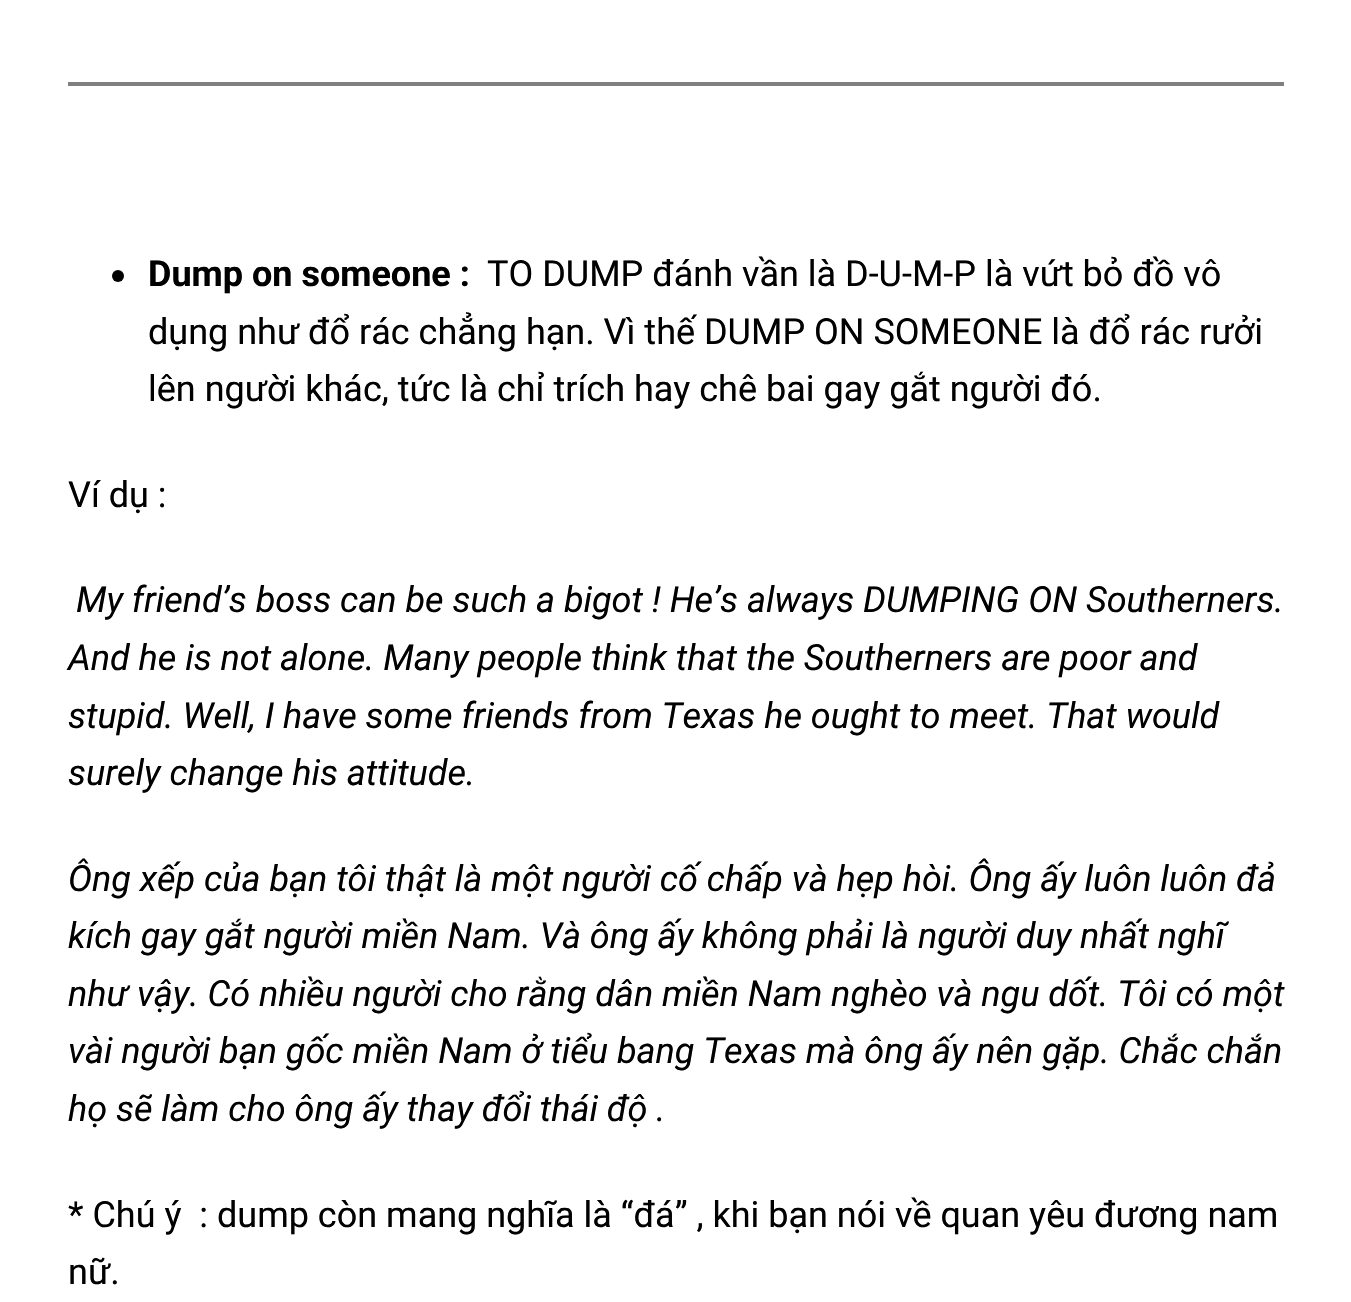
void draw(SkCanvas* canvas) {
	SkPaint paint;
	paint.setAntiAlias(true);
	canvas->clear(0xffffffff);
	paint.setColor(0xff808080);
	canvas->drawRect(SkRect::MakeXYWH(68, 82, 1216, 4), paint);
	paint.setColor(0xff000000);
	canvas->drawCircle(118, 276, 6, paint);
	SkFont f1(fontMgr->matchFamilyStyle("Roboto", SkFontStyle::Bold()), 36);
	f1.setSubpixel(true);
	canvas->drawString("Dump on someone :", 148, 286, f1, paint);
	SkFont f2(fontMgr->matchFamilyStyle("Roboto", SkFontStyle::Normal()), 36);
	f2.setSubpixel(true);
	canvas->drawString("TO DUMP đánh vần là D-U-M-P là vứt bỏ đồ vô", 487, 286, f2, paint);
	canvas->drawString("dụng như đổ rác chẳng hạn. Vì thế DUMP ON SOMEONE là đổ rác rưởi", 148, 344, f2, paint);
	canvas->drawString("lên người khác, tức là chỉ trích hay chê bai gay gắt người đó.", 148, 401, f2, paint);
	canvas->drawString("Ví dụ :", 68, 507, f2, paint);
	SkFont f3(fontMgr->matchFamilyStyle("Roboto", SkFontStyle::Italic()), 36);
	f3.setSubpixel(true);
	canvas->drawString("My friend’s boss can be such a bigot ! He’s always DUMPING ON Southerners.", 76, 612, f3, paint);
	canvas->drawString("And he is not alone. Many people think that the Southerners are poor and", 68, 670, f3, paint);
	canvas->drawString("stupid. Well, I have some friends from Texas he ought to meet. That would", 68, 728, f3, paint);
	canvas->drawString("surely change his attitude.", 68, 785, f3, paint);
	canvas->drawString("Ông xếp của bạn tôi thật là một người cố chấp và hẹp hòi. Ông ấy luôn luôn đả", 68, 891, f3, paint);
	canvas->drawString("kích gay gắt người miền Nam. Và ông ấy không phải là người duy nhất nghĩ", 68, 948, f3, paint);
	canvas->drawString("như vậy. Có nhiều người cho rằng dân miền Nam nghèo và ngu dốt. Tôi có một", 68, 1006, f3, paint);
	canvas->drawString("vài người bạn gốc miền Nam ở tiểu bang Texas mà ông ấy nên gặp. Chắc chắn", 68, 1063, f3, paint);
	canvas->drawString("họ sẽ làm cho ông ấy thay đổi thái độ .", 68, 1121, f3, paint);
	canvas->drawString("* Chú ý  : dump còn mang nghĩa là “đá” , khi bạn nói về quan yêu đương nam", 68, 1227, f2, paint);
	canvas->drawString("nữ.", 68, 1284, f2, paint);
}
